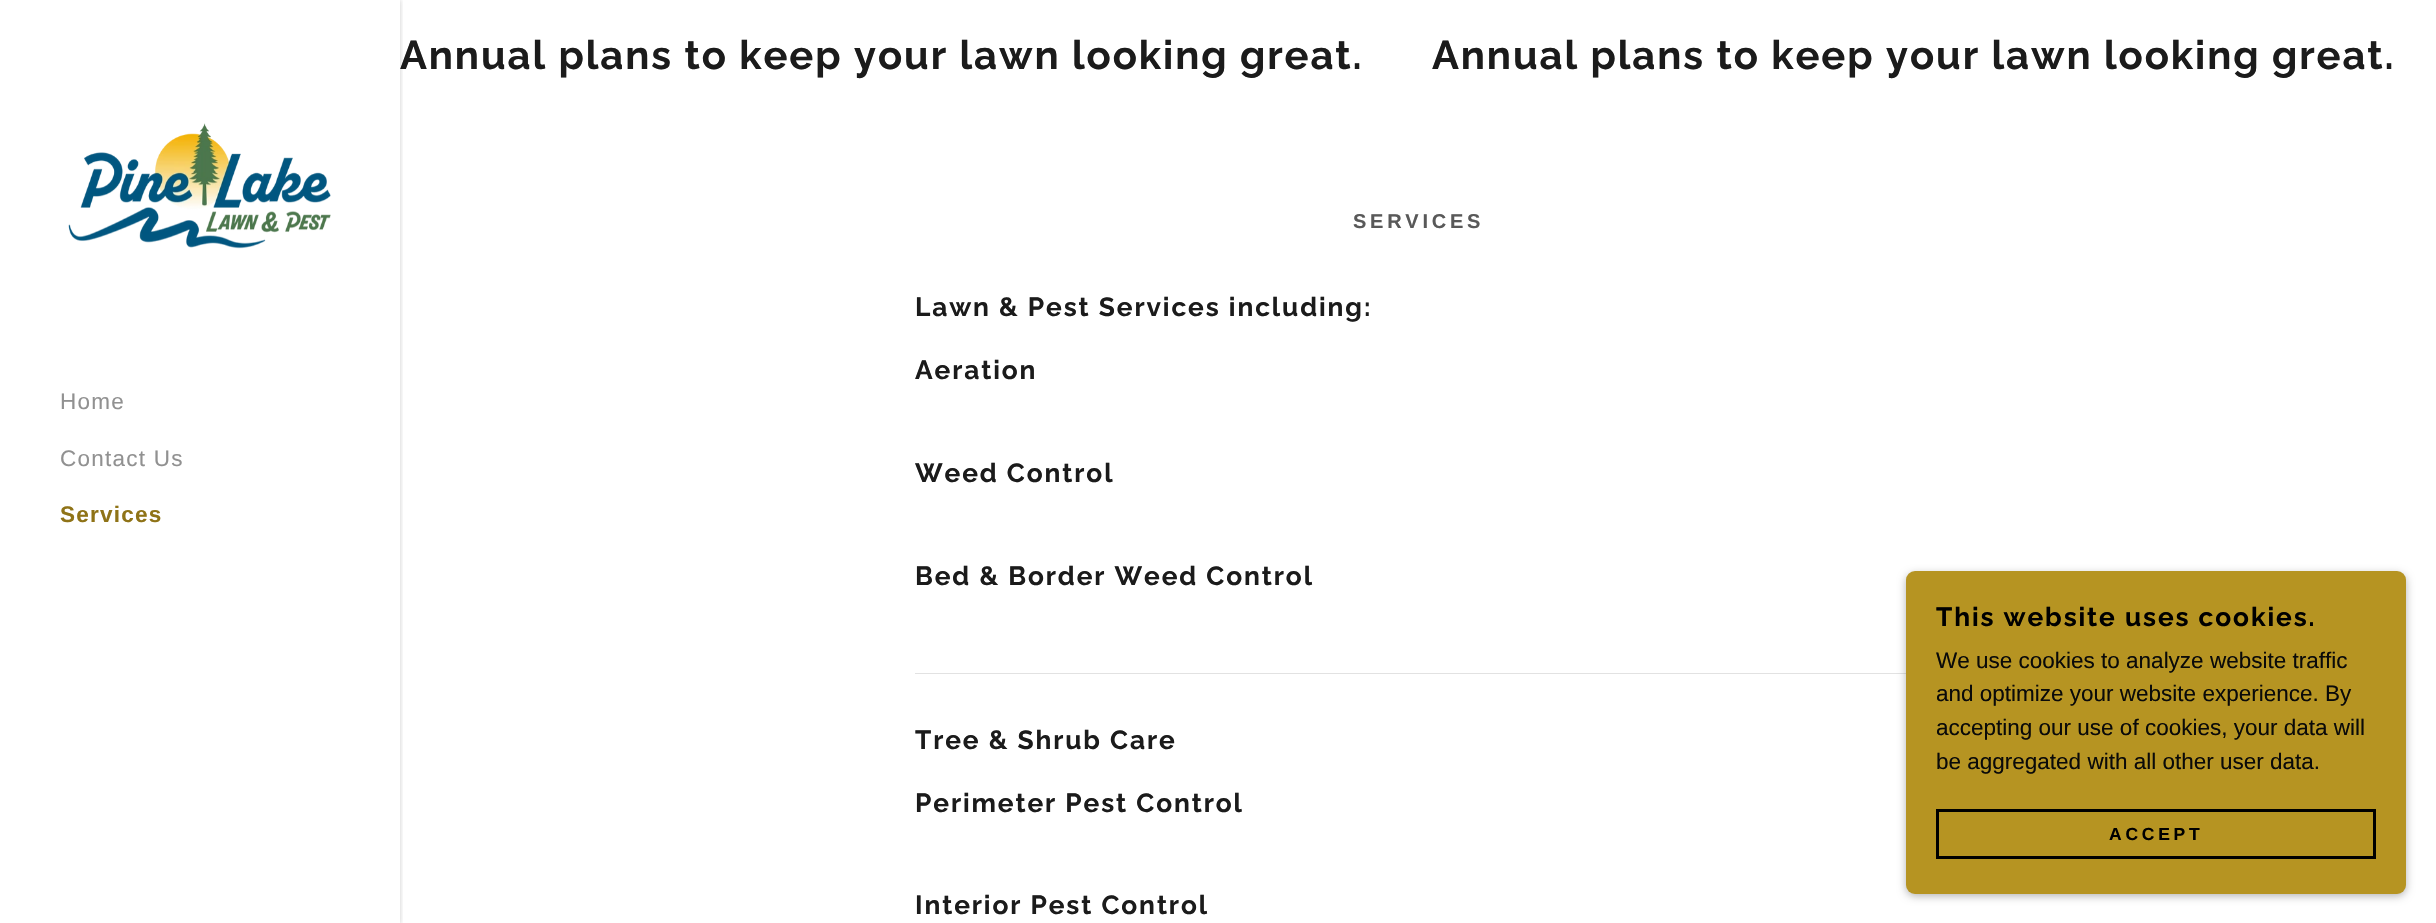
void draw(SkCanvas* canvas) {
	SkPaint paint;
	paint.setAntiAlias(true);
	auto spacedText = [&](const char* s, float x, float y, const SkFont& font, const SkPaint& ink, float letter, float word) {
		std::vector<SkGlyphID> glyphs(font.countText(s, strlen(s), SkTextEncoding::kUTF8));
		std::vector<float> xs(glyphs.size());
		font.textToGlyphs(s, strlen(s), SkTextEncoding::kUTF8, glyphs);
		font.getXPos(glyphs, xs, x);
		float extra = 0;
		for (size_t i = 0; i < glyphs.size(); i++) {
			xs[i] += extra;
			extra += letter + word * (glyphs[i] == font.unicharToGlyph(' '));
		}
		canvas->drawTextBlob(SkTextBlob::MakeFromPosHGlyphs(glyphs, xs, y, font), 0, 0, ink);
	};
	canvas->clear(0xffffffff);
	SkFont f1(fontMgr->matchFamilyStyle("Raleway", SkFontStyle::Bold()), 40);
	f1.setSubpixel(true);
	paint.setColor(0xff1b1b1b);
	spacedText("Annual plans to keep your lawn looking great.", 400, 69, f1, paint, 1.9, 0);
	spacedText("Annual plans to keep your lawn looking great.", 1432, 69, f1, paint, 1.9, 0);
	canvas->save();
	canvas->clipRect(SkRect::MakeXYWH(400, 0, 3, 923));
	paint.setColor(0x33000000);
	paint.setMaskFilter(SkMaskFilter::MakeBlur(kNormal_SkBlurStyle, 2.5));
	canvas->drawRect(SkRect::MakeXYWH(0, 0, 400, 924), paint);
	paint.setMaskFilter(nullptr);
	canvas->restore();
	canvas->drawImageRect(SkImages::DeferredFromEncodedData(SkData::MakeFromFileName("img1.png")), SkRect::MakeXYWH(68, 123, 263, 126), SkSamplingOptions());
	SkFont f2(fontMgr->matchFamilyStyle("Liberation Sans", SkFontStyle::Normal()), 22.5);
	f2.setSubpixel(true);
	paint.setColor(0xff919191);
	spacedText("Home", 60, 409, f2, paint, 1.25, 0);
	spacedText("Contact Us", 60, 466, f2, paint, 1.25, 0);
	SkFont f3(fontMgr->matchFamilyStyle("Liberation Sans", SkFontStyle::Bold()), 22.5);
	f3.setSubpixel(true);
	paint.setColor(0xff8f7317);
	spacedText("Services", 60, 522, f3, paint, 1.25, 0);
	SkFont f4(fontMgr->matchFamilyStyle("Liberation Sans", SkFontStyle::Bold()), 20);
	f4.setSubpixel(true);
	paint.setColor(0xff595959);
	spacedText("SERVICES", 1353, 228, f4, paint, 3.75, 0);
	SkFont f5(fontMgr->matchFamilyStyle("Raleway", SkFontStyle::Bold()), 26.25);
	f5.setSubpixel(true);
	paint.setColor(0xff1b1b1b);
	spacedText("Lawn & Pest Services including:", 915, 316, f5, paint, 1.9, 0);
	spacedText("Aeration", 915, 379, f5, paint, 1.9, 0);
	spacedText("Weed Control", 915, 482, f5, paint, 1.9, 0);
	spacedText("Bed & Border Weed Control", 915, 585, f5, paint, 1.9, 0);
	paint.setColor(0xffe2e2e2);
	canvas->drawRect(SkRect::MakeXYWH(915, 673, 991, 1), paint);
	paint.setColor(0xff1b1b1b);
	spacedText("Tree & Shrub Care", 915, 749, f5, paint, 1.9, 0);
	spacedText("Perimeter Pest Control", 915, 812, f5, paint, 1.9, 0);
	spacedText("Interior Pest Control", 915, 914, f5, paint, 1.9, 0);
	paint.setColor(0x4d000000);
	paint.setMaskFilter(SkMaskFilter::MakeBlur(kNormal_SkBlurStyle, 4));
	canvas->drawRoundRect(SkRect::MakeXYWH(1906, 574, 500, 322), 9, 9, paint);
	paint.setMaskFilter(nullptr);
	paint.setColor(0xffb69422);
	canvas->drawRoundRect(SkRect::MakeXYWH(1906, 571, 500, 323), 9, 9, paint);
	paint.setColor(0xff000000);
	spacedText("This website uses cookies.", 1936, 626, f5, paint, 1.9, 0);
	paint.setColor(0xff0a0a09);
	canvas->drawString("We use cookies to analyze website traffic", 1936, 668, f2, paint);
	canvas->drawString("and optimize your website experience. By", 1936, 701, f2, paint);
	canvas->drawString("accepting our use of cookies, your data will", 1936, 735, f2, paint);
	canvas->drawString("be aggregated with all other user data.", 1936, 769, f2, paint);
	paint.setStroke(true);
	paint.setStrokeWidth(3);
	paint.setColor(0xff000000);
	canvas->drawRect(SkRect::MakeXYWH(1937.5, 810.5, 437, 47), paint);
	SkFont f6(fontMgr->matchFamilyStyle("Liberation Sans", SkFontStyle::Bold()), 17.5);
	f6.setSubpixel(true);
	paint.setStroke(false);
	spacedText("ACCEPT", 2109, 840, f6, paint, 3.75, 0);
}
